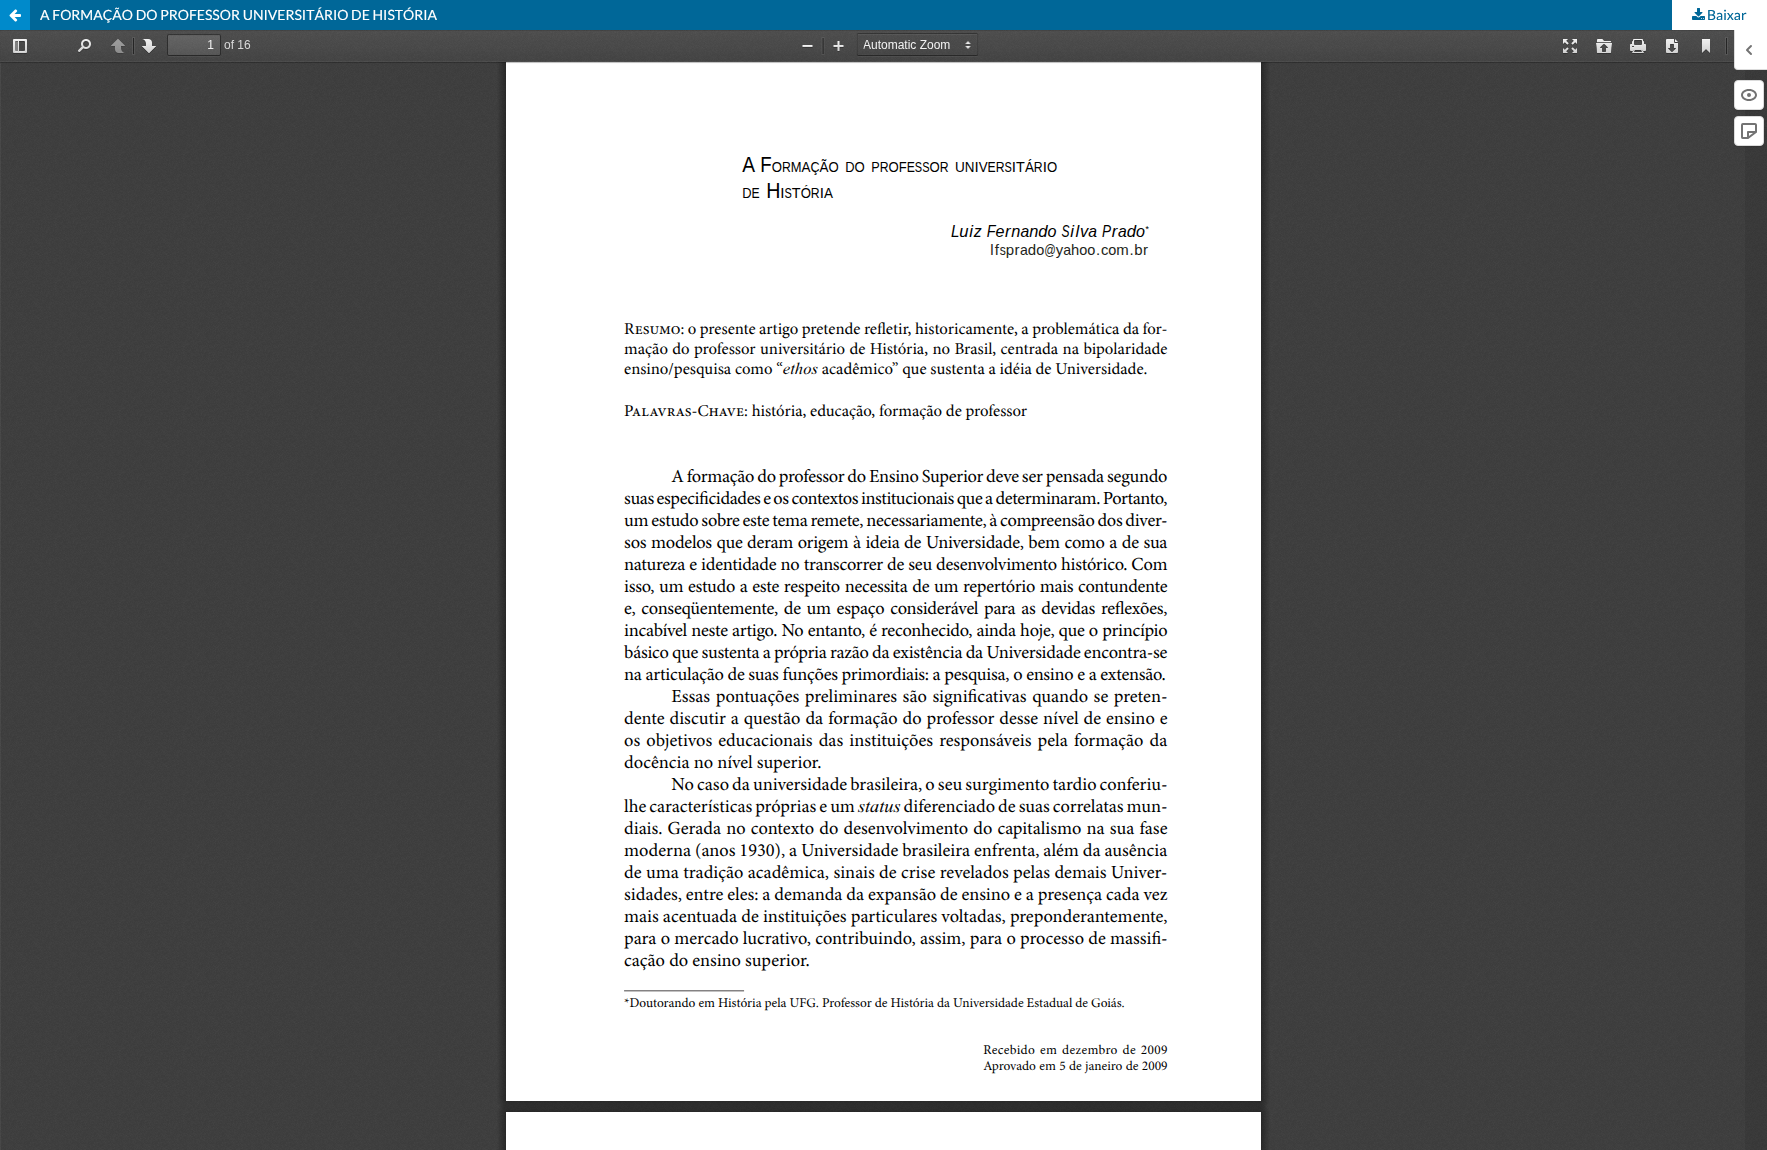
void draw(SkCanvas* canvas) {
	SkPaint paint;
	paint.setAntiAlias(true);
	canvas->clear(0xffffffff);
	paint.setColor(0xff006798);
	canvas->drawRect(SkRect::MakeXYWH(30, 0, 1642, 30), paint);
	paint.setColor(0xff008acb);
	canvas->drawRect(SkRect::MakeXYWH(0, 0, 30, 30), paint);
	canvas->drawImageRect(SkImages::DeferredFromEncodedData(SkData::MakeFromFileName("img1.png")), SkRect::MakeXYWH(9, 9, 12, 13), SkSamplingOptions());
	SkFont f1(fontMgr->matchFamilyStyle("Lato", SkFontStyle::Normal()), 14);
	f1.setSubpixel(true);
	paint.setColor(0xffffffff);
	canvas->drawString("A FORMAÇÃO DO PROFESSOR UNIVERSITÁRIO DE HISTÓRIA", 40, 20, f1, paint);
	canvas->drawImageRect(SkImages::DeferredFromEncodedData(SkData::MakeFromFileName("img2.png")), SkRect::MakeXYWH(1692, 8, 13, 12), SkSamplingOptions());
	paint.setColor(0xff006798);
	canvas->drawString("Baixar", 1707, 20, f1, paint);
	canvas->drawImageRect(SkImages::DeferredFromEncodedData(SkData::MakeFromFileName("img3.png")), SkRect::MakeXYWH(0, 30, 1767, 1120), SkSamplingOptions());
}
